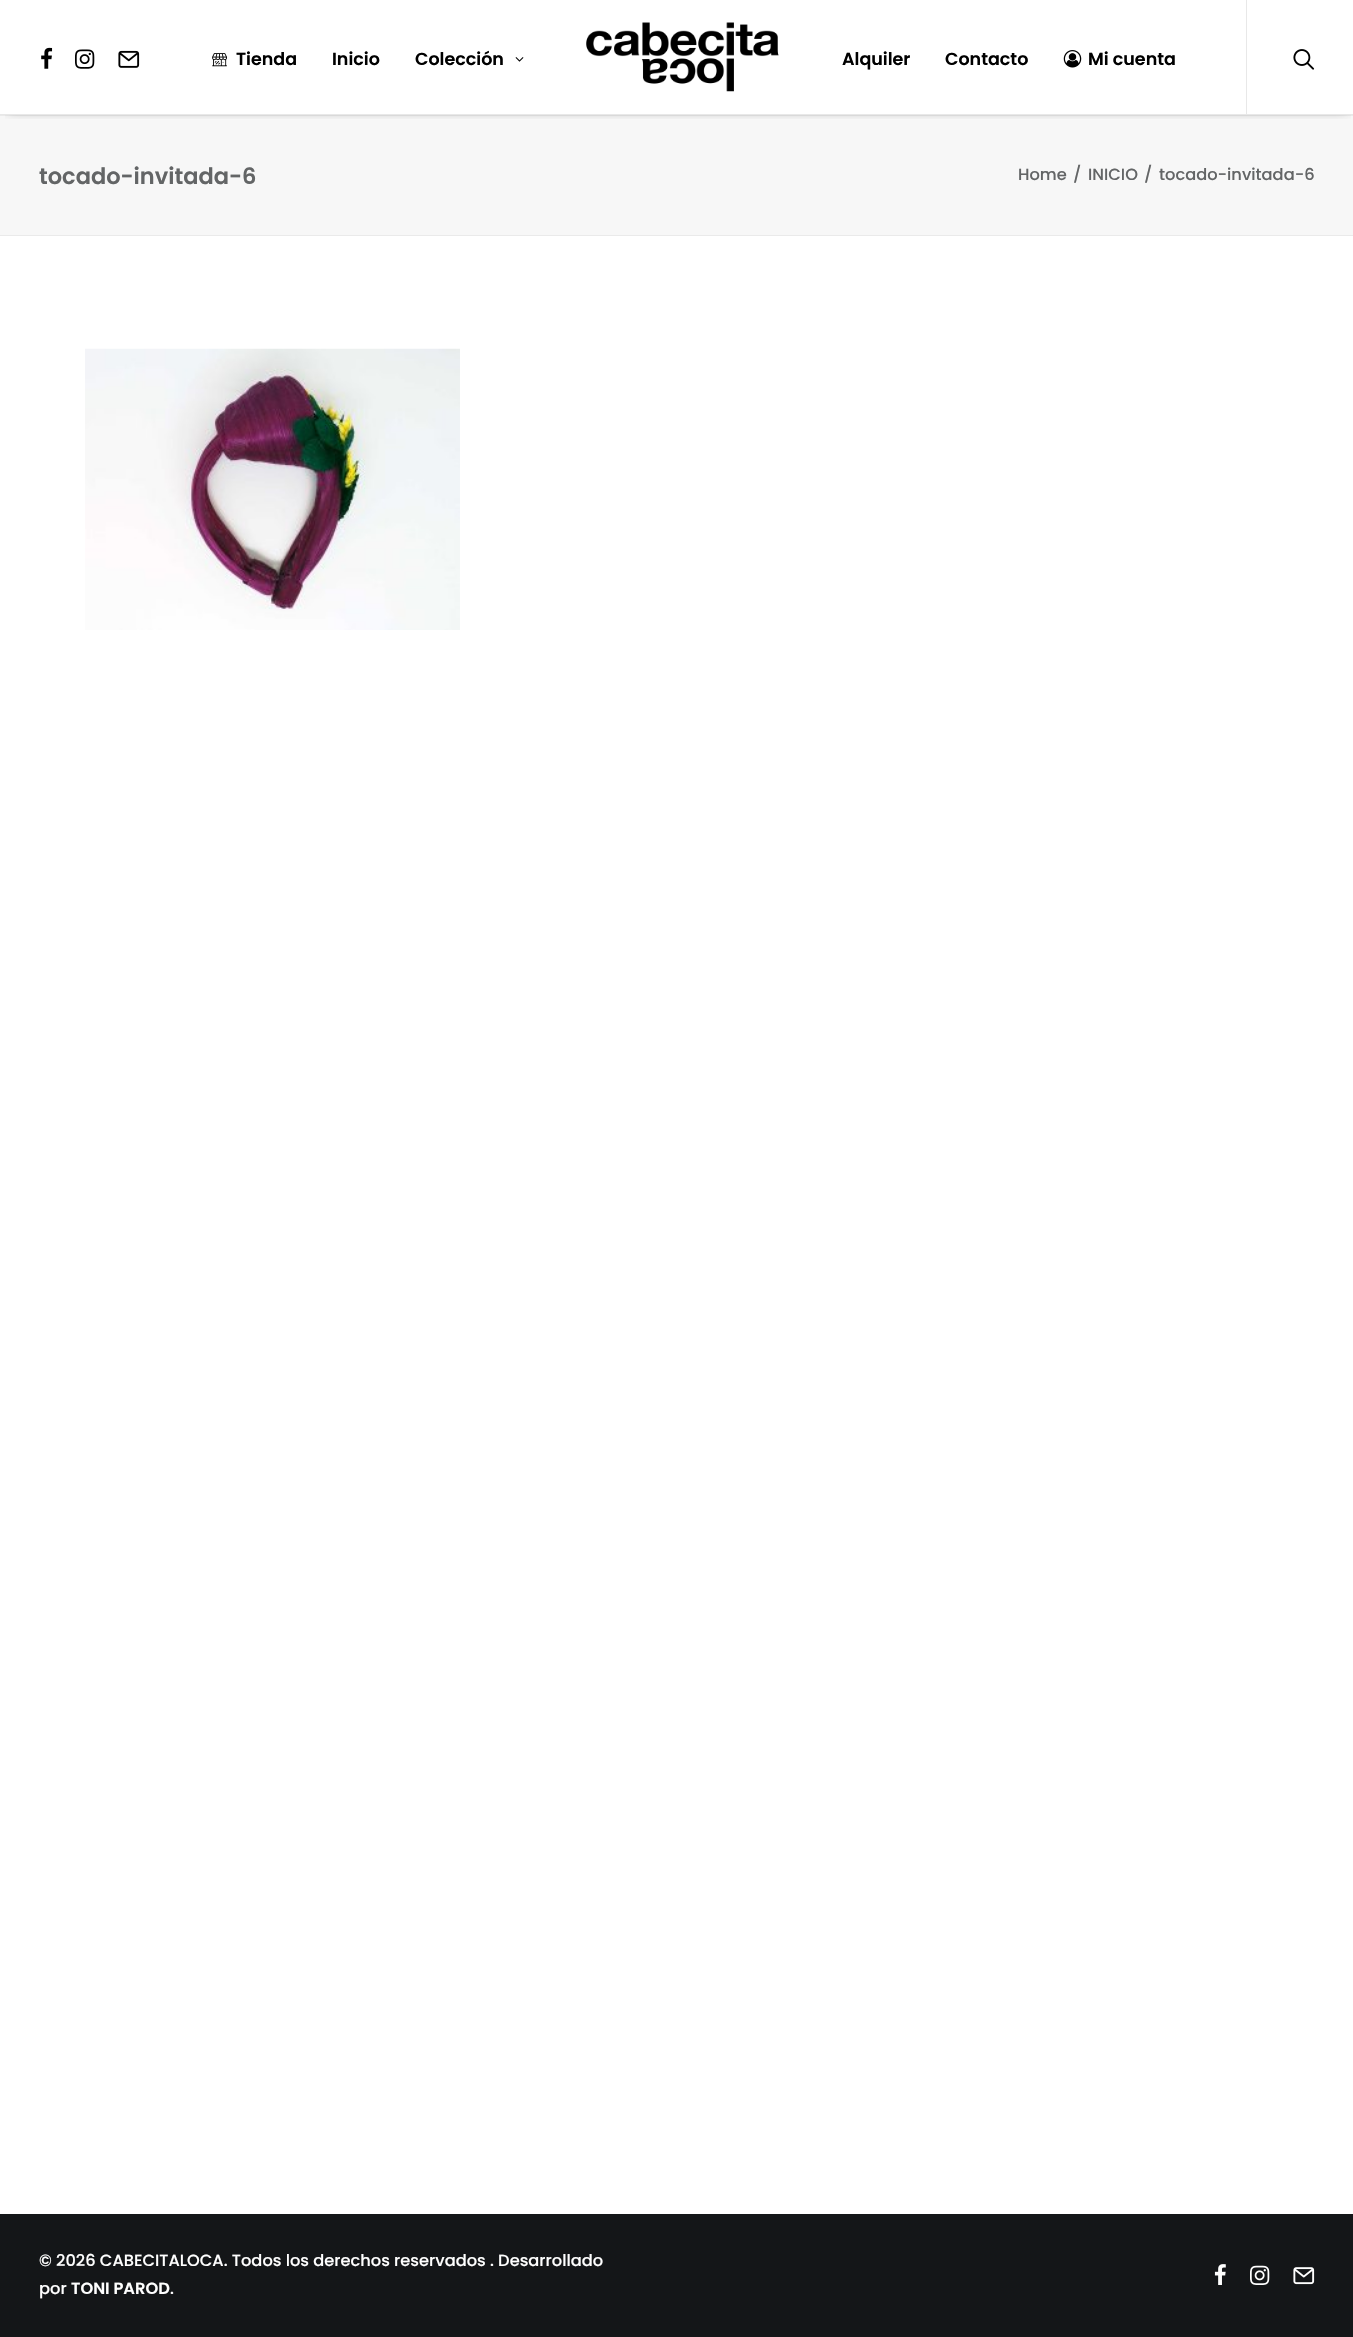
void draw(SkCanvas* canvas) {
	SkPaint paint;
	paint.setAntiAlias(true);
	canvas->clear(0xffffffff);
	paint.setColor(0xfff7f7f7);
	canvas->drawRect(SkRect::MakeXYWH(0, 116, 1353, 119), paint);
	paint.setColor(0xffeaeaea);
	canvas->drawRect(SkRect::MakeXYWH(0, 115, 1353, 1), paint);
	canvas->save();
	canvas->clipRect(SkRect::MakeXYWH(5, 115, 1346, 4));
	paint.setColor(0x99000000);
	paint.setMaskFilter(SkMaskFilter::MakeBlur(kNormal_SkBlurStyle, 6));
	canvas->drawRect(SkRect::MakeXYWH(8, 18, 1340, 90), paint);
	paint.setMaskFilter(nullptr);
	canvas->restore();
	paint.setColor(0xffe8e8e8);
	canvas->drawRect(SkRect::MakeXYWH(0, 114, 1353, 1), paint);
	canvas->drawImageRect(SkImages::DeferredFromEncodedData(SkData::MakeFromFileName("img1.png")), SkRect::MakeXYWH(41, 47, 12, 22), SkSamplingOptions());
	canvas->drawImageRect(SkImages::DeferredFromEncodedData(SkData::MakeFromFileName("img2.png")), SkRect::MakeXYWH(75, 49, 20, 20), SkSamplingOptions());
	canvas->drawImageRect(SkImages::DeferredFromEncodedData(SkData::MakeFromFileName("img3.png")), SkRect::MakeXYWH(118, 50, 22, 18), SkSamplingOptions());
	canvas->drawImageRect(SkImages::DeferredFromEncodedData(SkData::MakeFromFileName("img4.png")), SkRect::MakeXYWH(212, 53, 15, 14), SkSamplingOptions());
	SkFont f1(fontMgr->matchFamilyStyle("Poppins", SkFontStyle(600, SkFontStyle::kNormal_Width, SkFontStyle::kUpright_Slant)), 17.5);
	f1.setSubpixel(true);
	paint.setColor(0xff000000);
	canvas->drawString("Tienda", 236, 65, f1, paint);
	canvas->drawString("Inicio", 332, 65, f1, paint);
	canvas->drawString("Colección", 415, 65, f1, paint);
	canvas->drawImageRect(SkImages::DeferredFromEncodedData(SkData::MakeFromFileName("img5.png")), SkRect::MakeXYWH(515, 57, 9, 5), SkSamplingOptions());
	canvas->drawImageRect(SkImages::DeferredFromEncodedData(SkData::MakeFromFileName("img6.png")), SkRect::MakeXYWH(586, 22, 193, 70), SkSamplingOptions());
	canvas->drawString("Alquiler", 842, 65, f1, paint);
	canvas->drawString("Contacto", 945, 65, f1, paint);
	canvas->drawImageRect(SkImages::DeferredFromEncodedData(SkData::MakeFromFileName("img7.png")), SkRect::MakeXYWH(1063, 50, 19, 18), SkSamplingOptions());
	canvas->drawString("Mi cuenta", 1088, 65, f1, paint);
	paint.setColor(0xffe8e8e8);
	canvas->drawRect(SkRect::MakeXYWH(1246, 0, 1, 114), paint);
	canvas->drawImageRect(SkImages::DeferredFromEncodedData(SkData::MakeFromFileName("img8.png")), SkRect::MakeXYWH(1293, 49, 22, 21), SkSamplingOptions());
	paint.setColor(0xffeaeaea);
	canvas->drawRect(SkRect::MakeXYWH(0, 235, 1353, 1), paint);
	SkFont f2(fontMgr->matchFamilyStyle("Poppins", SkFontStyle(600, SkFontStyle::kNormal_Width, SkFontStyle::kUpright_Slant)), 22.5);
	f2.setSubpixel(true);
	paint.setColor(0xff636566);
	canvas->drawString("tocado-invitada-6", 39, 184, f2, paint);
	SkFont f3(fontMgr->matchFamilyStyle("Poppins", SkFontStyle(500, SkFontStyle::kNormal_Width, SkFontStyle::kUpright_Slant)), 16.25);
	f3.setSubpixel(true);
	canvas->drawString("Home", 1018, 180, f3, paint);
	canvas->drawString("/", 1073, 180, f3, paint);
	canvas->drawString("INICIO", 1088, 180, f3, paint);
	canvas->drawString("/", 1144, 180, f3, paint);
	canvas->drawString("tocado-invitada-6", 1159, 180, f3, paint);
	canvas->drawImageRect(SkImages::DeferredFromEncodedData(SkData::MakeFromFileName("img9.png")), SkRect::MakeXYWH(85, 348, 375, 282), SkSamplingOptions());
	paint.setColor(0xff141618);
	canvas->drawRect(SkRect::MakeXYWH(0, 2214, 1353, 123), paint);
	paint.setColor(0xffffffff);
	canvas->drawString("© 2026 CABECITALOCA. Todos los derechos reservados . Desarrollado", 39, 2266, f3, paint);
	canvas->drawString("por", 39, 2294, f3, paint);
	SkFont f4(fontMgr->matchFamilyStyle("Poppins", SkFontStyle(600, SkFontStyle::kNormal_Width, SkFontStyle::kUpright_Slant)), 16.25);
	f4.setSubpixel(true);
	canvas->drawString("TONI PAROD", 71, 2294, f4, paint);
	canvas->drawString(".", 170, 2294, f3, paint);
	canvas->drawImageRect(SkImages::DeferredFromEncodedData(SkData::MakeFromFileName("img10.png")), SkRect::MakeXYWH(1214, 2264, 12, 21), SkSamplingOptions());
	canvas->drawImageRect(SkImages::DeferredFromEncodedData(SkData::MakeFromFileName("img11.png")), SkRect::MakeXYWH(1250, 2265, 20, 20), SkSamplingOptions());
	canvas->drawImageRect(SkImages::DeferredFromEncodedData(SkData::MakeFromFileName("img12.png")), SkRect::MakeXYWH(1293, 2267, 22, 18), SkSamplingOptions());
}
